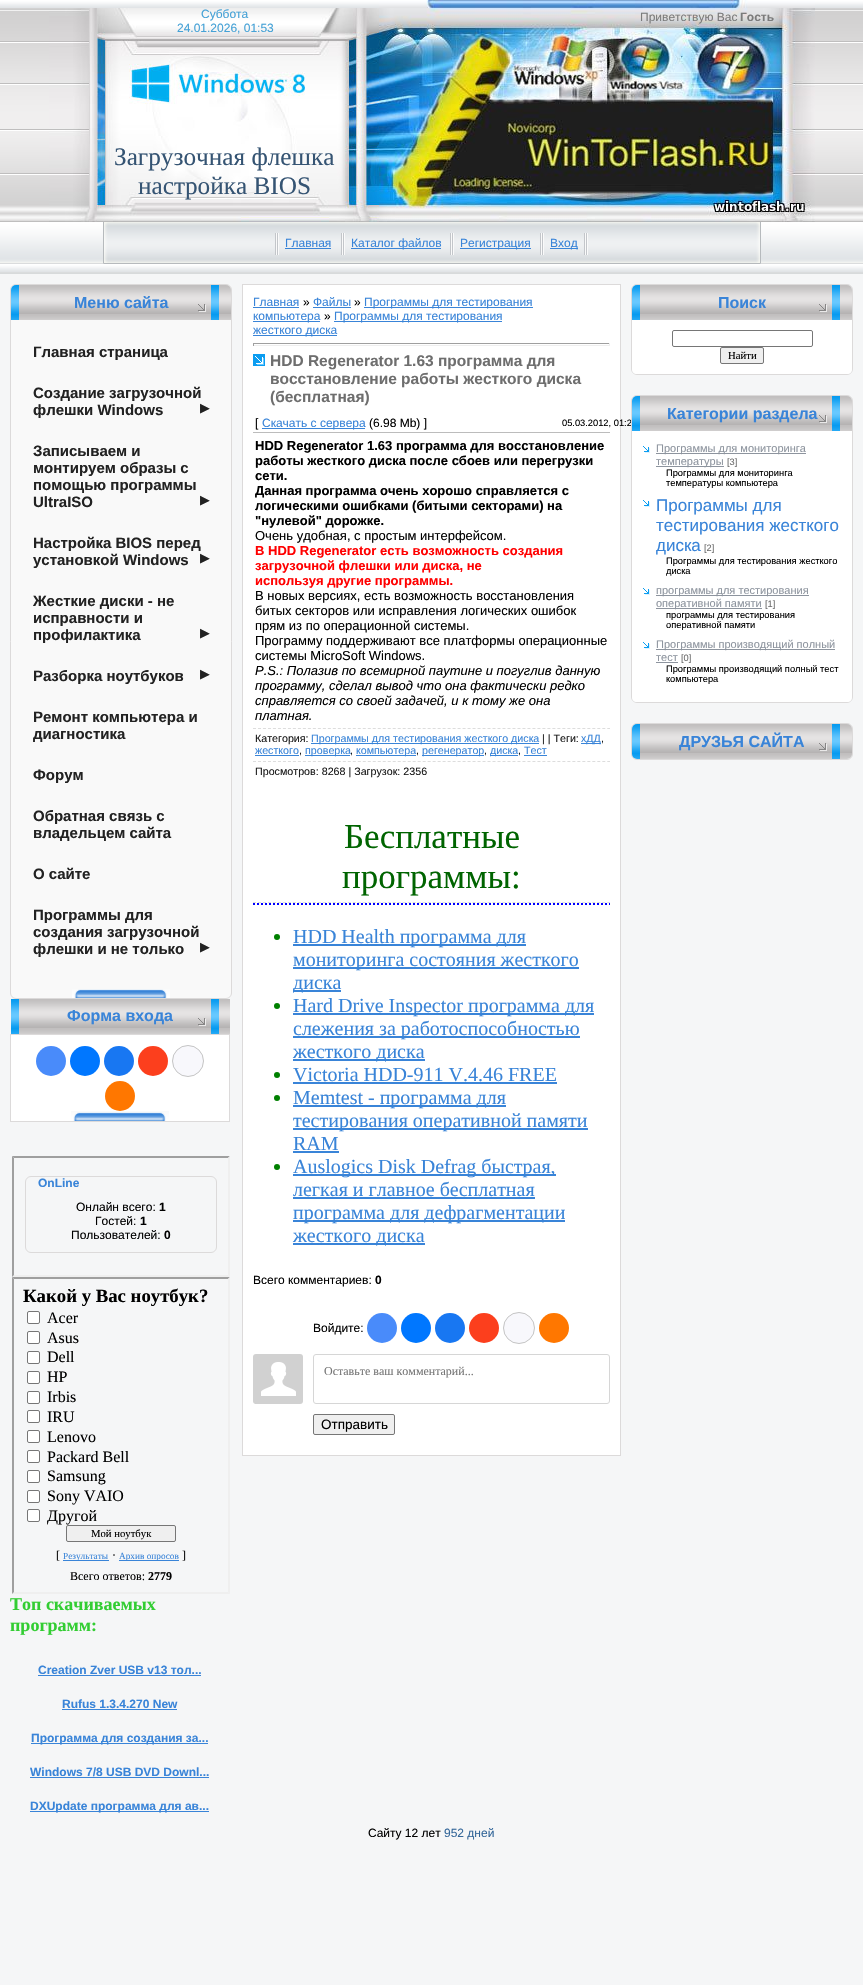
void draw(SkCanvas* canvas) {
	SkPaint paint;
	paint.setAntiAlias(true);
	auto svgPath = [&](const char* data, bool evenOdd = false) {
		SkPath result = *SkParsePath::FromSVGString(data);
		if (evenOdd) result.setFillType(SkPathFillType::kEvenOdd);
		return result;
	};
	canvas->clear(0xfff5f6f7);
	canvas->drawImageRect(SkImages::DeferredFromEncodedData(SkData::MakeFromFileName("img1.png")), SkRect::MakeXYWH(0, 0, 863, 222), SkSamplingOptions());
	canvas->drawImageRect(SkImages::DeferredFromEncodedData(SkData::MakeFromFileName("img2.png")), SkRect::MakeXYWH(49, 8, 330, 214), SkSamplingOptions());
	SkFont f1(fontMgr->matchFamilyStyle("Liberation Sans", SkFontStyle::Normal()), 12);
	f1.setSubpixel(true);
	paint.setColor(0xff44a1d6);
	canvas->drawString("Суббота", 201, 18, f1, paint);
	canvas->drawString("24.01.2026, 01:53", 177, 32, f1, paint);
	SkFont f2(fontMgr->matchFamilyStyle("Liberation Serif", SkFontStyle::Normal()), 25.25);
	f2.setSubpixel(true);
	paint.setColor(0xff355473);
	canvas->drawString("Загрузочная флешка", 114, 165, f2, paint);
	canvas->drawString("настройка BIOS", 138, 194, f2, paint);
	canvas->drawImageRect(SkImages::DeferredFromEncodedData(SkData::MakeFromFileName("img3.png")), SkRect::MakeXYWH(379, 0, 436, 222), SkSamplingOptions());
	paint.setColor(0xff7b7b7b);
	canvas->drawString("Приветствую Вас", 640, 21, f1, paint);
	SkFont f3(fontMgr->matchFamilyStyle("Liberation Sans", SkFontStyle::Bold()), 12);
	f3.setSubpixel(true);
	canvas->drawString("Гость", 740, 21, f3, paint);
	canvas->drawImageRect(SkImages::DeferredFromEncodedData(SkData::MakeFromFileName("img4.png")), SkRect::MakeXYWH(0, 222, 863, 52), SkSamplingOptions());
	canvas->drawImageRect(SkImages::DeferredFromEncodedData(SkData::MakeFromFileName("img5.png")), SkRect::MakeXYWH(103, 222, 658, 52), SkSamplingOptions());
	canvas->drawImageRect(SkImages::DeferredFromEncodedData(SkData::MakeFromFileName("img6.png")), SkRect::MakeXYWH(275, 233, 4, 22), SkSamplingOptions());
	paint.setColor(0xff3984d8);
	canvas->drawString("Главная", 285, 247, f1, paint);
	canvas->drawRect(SkRect::MakeXYWH(285, 248, 46, 1), paint);
	canvas->drawImageRect(SkImages::DeferredFromEncodedData(SkData::MakeFromFileName("img6.png")), SkRect::MakeXYWH(341, 233, 4, 22), SkSamplingOptions());
	canvas->drawRect(SkRect::MakeXYWH(351, 248, 90, 1), paint);
	canvas->drawString("Каталог файлов", 351, 247, f1, paint);
	canvas->drawImageRect(SkImages::DeferredFromEncodedData(SkData::MakeFromFileName("img6.png")), SkRect::MakeXYWH(450, 233, 4, 22), SkSamplingOptions());
	canvas->drawRect(SkRect::MakeXYWH(460, 248, 71, 1), paint);
	canvas->drawString("Регистрация", 460, 247, f1, paint);
	canvas->drawImageRect(SkImages::DeferredFromEncodedData(SkData::MakeFromFileName("img6.png")), SkRect::MakeXYWH(540, 233, 4, 22), SkSamplingOptions());
	canvas->drawRect(SkRect::MakeXYWH(550, 248, 28, 1), paint);
	canvas->drawString("Вход", 550, 247, f1, paint);
	canvas->drawImageRect(SkImages::DeferredFromEncodedData(SkData::MakeFromFileName("img6.png")), SkRect::MakeXYWH(584, 233, 4, 22), SkSamplingOptions());
	paint.setColor(0xfff9f9f9);
	canvas->drawRoundRect(SkRect::MakeXYWH(10, 284, 222, 715), 6, 6, paint);
	canvas->drawImageRect(SkImages::DeferredFromEncodedData(SkData::MakeFromFileName("img7.png")), SkRect::MakeXYWH(72, 989, 98, 9), SkSamplingOptions());
	paint.setStroke(true);
	paint.setStrokeWidth(1);
	paint.setColor(0xffdcdada);
	canvas->drawRoundRect(SkRect::MakeXYWH(10.5, 284.5, 221, 714), 5.5, 5.5, paint);
	canvas->drawImageRect(SkImages::DeferredFromEncodedData(SkData::MakeFromFileName("img8.png")), SkRect::MakeXYWH(11, 285, 220, 35), SkSamplingOptions());
	SkFont f4(fontMgr->matchFamilyStyle("Liberation Sans", SkFontStyle::Bold()), 16);
	f4.setSubpixel(true);
	paint.setStroke(false);
	paint.setColor(0xff3984d8);
	canvas->drawString("Меню сайта", 74, 308, f4, paint);
	SkFont f5(fontMgr->matchFamilyStyle("Liberation Sans", SkFontStyle::Bold()), 15);
	f5.setSubpixel(true);
	paint.setColor(0xff222222);
	canvas->drawString("Главная страница", 33, 357, f5, paint);
	canvas->drawString("Создание загрузочной", 33, 398, f5, paint);
	canvas->drawString("флешки Windows", 33, 415, f5, paint);
	SkFont f6(fontMgr->matchFamilyStyle("DejaVu Sans", SkFontStyle::Bold()), 12);
	f6.setSubpixel(true);
	canvas->drawString("▶", 200, 412, f6, paint);
	canvas->drawString("Записываем и", 33, 456, f5, paint);
	canvas->drawString("монтируем образы с", 33, 473, f5, paint);
	canvas->drawString("помощью программы", 33, 490, f5, paint);
	canvas->drawString("UltraISO", 33, 507, f5, paint);
	canvas->drawString("▶", 200, 504, f6, paint);
	canvas->drawString("Настройка BIOS перед", 33, 548, f5, paint);
	canvas->drawString("установкой Windows", 33, 565, f5, paint);
	canvas->drawString("▶", 200, 562, f6, paint);
	canvas->drawString("Жесткие диски - не", 33, 606, f5, paint);
	canvas->drawString("исправности и", 33, 623, f5, paint);
	canvas->drawString("профилактика", 33, 640, f5, paint);
	canvas->drawString("▶", 200, 637, f6, paint);
	canvas->drawString("Разборка ноутбуков", 33, 681, f5, paint);
	canvas->drawString("▶", 200, 678, f6, paint);
	canvas->drawString("Ремонт компьютера и", 33, 722, f5, paint);
	canvas->drawString("диагностика", 33, 739, f5, paint);
	canvas->drawString("Форум", 33, 780, f5, paint);
	canvas->drawString("Обратная связь с", 33, 821, f5, paint);
	canvas->drawString("владельцем сайта", 33, 838, f5, paint);
	canvas->drawString("О сайте", 33, 879, f5, paint);
	canvas->drawString("Программы для", 33, 920, f5, paint);
	canvas->drawString("создания загрузочной", 33, 937, f5, paint);
	canvas->drawString("флешки и не только", 33, 954, f5, paint);
	canvas->drawString("▶", 200, 951, f6, paint);
	canvas->drawImageRect(SkImages::DeferredFromEncodedData(SkData::MakeFromFileName("img9.png")), SkRect::MakeXYWH(11, 999, 219, 35), SkSamplingOptions());
	paint.setColor(0xff3984d8);
	canvas->drawString("Форма входа", 67, 1021, f4, paint);
	paint.setColor(0xffffffff);
	canvas->drawRect(SkRect::MakeXYWH(11, 1035, 218, 86), paint);
	canvas->drawImageRect(SkImages::DeferredFromEncodedData(SkData::MakeFromFileName("img10.png")), SkRect::MakeXYWH(71, 1111, 98, 10), SkSamplingOptions());
	paint.setColor(0xffdcdada);
	canvas->drawRect(SkRect::MakeXYWH(10, 1034, 220, 1), paint);
	canvas->drawRect(SkRect::MakeXYWH(229, 1034, 1, 88), paint);
	canvas->drawRect(SkRect::MakeXYWH(10, 1121, 220, 1), paint);
	canvas->drawRect(SkRect::MakeXYWH(10, 1034, 1, 88), paint);
	paint.setColor(0xff498bfa);
	canvas->drawCircle(51, 1061, 15, paint);
	paint.setColor(0xff0077ff);
	canvas->drawCircle(85, 1061, 15, paint);
	paint.setColor(0xff1877f2);
	canvas->drawCircle(119, 1061, 15, paint);
	paint.setColor(0xfffc3f1d);
	canvas->drawCircle(153, 1061, 15, paint);
	paint.setColor(0xfff8f8fc);
	canvas->drawCircle(188, 1061, 15.5, paint);
	paint.setStroke(true);
	paint.setColor(0xffc4c4c4);
	canvas->drawCircle(188, 1061, 15.5, paint);
	paint.setStroke(false);
	paint.setColor(0xffff7700);
	canvas->drawCircle(120, 1096, 15, paint);
	paint.setColor(0xff9f9f9f);
	canvas->drawPath(svgPath("M12 1156H230L228 1158H14Z"), paint);
	paint.setColor(0xffefefef);
	canvas->drawPath(svgPath("M230 1156V1277L228 1275V1158Z"), paint);
	canvas->drawPath(svgPath("M230 1277H12L14 1275H228Z"), paint);
	paint.setColor(0xff9f9f9f);
	canvas->drawPath(svgPath("M12 1277V1156L14 1158V1275Z"), paint);
	paint.setStroke(true);
	paint.setColor(0xffdcdada);
	canvas->drawRoundRect(SkRect::MakeXYWH(25.5, 1176.5, 191, 76), 5.5, 5.5, paint);
	paint.setStroke(false);
	paint.setColor(0xff3984d8);
	canvas->drawString("OnLine", 38, 1187, f3, paint);
	paint.setColor(0xff000000);
	canvas->drawString("Онлайн всего:", 76, 1211, f1, paint);
	canvas->drawString("1", 159, 1211, f3, paint);
	canvas->drawString("Гостей:", 95, 1225, f1, paint);
	canvas->drawString("1", 140, 1225, f3, paint);
	canvas->drawString("Пользователей:", 71, 1239, f1, paint);
	canvas->drawString("0", 164, 1239, f3, paint);
	paint.setColor(0xff9f9f9f);
	canvas->drawPath(svgPath("M12 1277H230L228 1279H14Z"), paint);
	paint.setColor(0xffefefef);
	canvas->drawPath(svgPath("M230 1277V1594L228 1592V1279Z"), paint);
	canvas->drawPath(svgPath("M230 1594H12L14 1592H228Z"), paint);
	paint.setColor(0xff9f9f9f);
	canvas->drawPath(svgPath("M12 1594V1277L14 1279V1592Z"), paint);
	SkFont f7(fontMgr->matchFamilyStyle("Liberation Serif", SkFontStyle::Bold()), 18.75);
	f7.setSubpixel(true);
	paint.setColor(0xff000000);
	canvas->drawString("Какой у Вас ноутбук?", 23, 1302, f7, paint);
	paint.setColor(0xffffffff);
	canvas->drawRoundRect(SkRect::MakeXYWH(27.5, 1311.5, 12, 12), 1.5, 1.5, paint);
	paint.setStroke(true);
	paint.setColor(0xff767676);
	canvas->drawRoundRect(SkRect::MakeXYWH(27.5, 1311.5, 12, 12), 1.5, 1.5, paint);
	SkFont f8(fontMgr->matchFamilyStyle("Liberation Serif", SkFontStyle::Normal()), 16);
	f8.setSubpixel(true);
	paint.setStroke(false);
	paint.setColor(0xff000000);
	canvas->drawString("Acer", 47, 1323, f8, paint);
	paint.setColor(0xffffffff);
	canvas->drawRoundRect(SkRect::MakeXYWH(27.5, 1331.5, 12, 12), 1.5, 1.5, paint);
	paint.setStroke(true);
	paint.setColor(0xff767676);
	canvas->drawRoundRect(SkRect::MakeXYWH(27.5, 1331.5, 12, 12), 1.5, 1.5, paint);
	paint.setStroke(false);
	paint.setColor(0xff000000);
	canvas->drawString("Asus", 47, 1343, f8, paint);
	paint.setColor(0xffffffff);
	canvas->drawRoundRect(SkRect::MakeXYWH(27.5, 1351.5, 12, 12), 1.5, 1.5, paint);
	paint.setStroke(true);
	paint.setColor(0xff767676);
	canvas->drawRoundRect(SkRect::MakeXYWH(27.5, 1351.5, 12, 12), 1.5, 1.5, paint);
	paint.setStroke(false);
	paint.setColor(0xff000000);
	canvas->drawString("Dell", 47, 1362, f8, paint);
	paint.setColor(0xffffffff);
	canvas->drawRoundRect(SkRect::MakeXYWH(27.5, 1371.5, 12, 12), 1.5, 1.5, paint);
	paint.setStroke(true);
	paint.setColor(0xff767676);
	canvas->drawRoundRect(SkRect::MakeXYWH(27.5, 1371.5, 12, 12), 1.5, 1.5, paint);
	paint.setStroke(false);
	paint.setColor(0xff000000);
	canvas->drawString("HP", 47, 1382, f8, paint);
	paint.setColor(0xffffffff);
	canvas->drawRoundRect(SkRect::MakeXYWH(27.5, 1391.5, 12, 12), 1.5, 1.5, paint);
	paint.setStroke(true);
	paint.setColor(0xff767676);
	canvas->drawRoundRect(SkRect::MakeXYWH(27.5, 1391.5, 12, 12), 1.5, 1.5, paint);
	paint.setStroke(false);
	paint.setColor(0xff000000);
	canvas->drawString("Irbis", 47, 1402, f8, paint);
	paint.setColor(0xffffffff);
	canvas->drawRoundRect(SkRect::MakeXYWH(27.5, 1410.5, 12, 12), 1.5, 1.5, paint);
	paint.setStroke(true);
	paint.setColor(0xff767676);
	canvas->drawRoundRect(SkRect::MakeXYWH(27.5, 1410.5, 12, 12), 1.5, 1.5, paint);
	paint.setStroke(false);
	paint.setColor(0xff000000);
	canvas->drawString("IRU", 47, 1422, f8, paint);
	paint.setColor(0xffffffff);
	canvas->drawRoundRect(SkRect::MakeXYWH(27.5, 1430.5, 12, 12), 1.5, 1.5, paint);
	paint.setStroke(true);
	paint.setColor(0xff767676);
	canvas->drawRoundRect(SkRect::MakeXYWH(27.5, 1430.5, 12, 12), 1.5, 1.5, paint);
	paint.setStroke(false);
	paint.setColor(0xff000000);
	canvas->drawString("Lenovo", 47, 1442, f8, paint);
	paint.setColor(0xffffffff);
	canvas->drawRoundRect(SkRect::MakeXYWH(27.5, 1450.5, 12, 12), 1.5, 1.5, paint);
	paint.setStroke(true);
	paint.setColor(0xff767676);
	canvas->drawRoundRect(SkRect::MakeXYWH(27.5, 1450.5, 12, 12), 1.5, 1.5, paint);
	paint.setStroke(false);
	paint.setColor(0xff000000);
	canvas->drawString("Packard Bell", 47, 1462, f8, paint);
	paint.setColor(0xffffffff);
	canvas->drawRoundRect(SkRect::MakeXYWH(27.5, 1470.5, 12, 12), 1.5, 1.5, paint);
	paint.setStroke(true);
	paint.setColor(0xff767676);
	canvas->drawRoundRect(SkRect::MakeXYWH(27.5, 1470.5, 12, 12), 1.5, 1.5, paint);
	paint.setStroke(false);
	paint.setColor(0xff000000);
	canvas->drawString("Samsung", 47, 1481, f8, paint);
	paint.setColor(0xffffffff);
	canvas->drawRoundRect(SkRect::MakeXYWH(27.5, 1490.5, 12, 12), 1.5, 1.5, paint);
	paint.setStroke(true);
	paint.setColor(0xff767676);
	canvas->drawRoundRect(SkRect::MakeXYWH(27.5, 1490.5, 12, 12), 1.5, 1.5, paint);
	paint.setStroke(false);
	paint.setColor(0xff000000);
	canvas->drawString("Sony VAIO", 47, 1501, f8, paint);
	paint.setColor(0xffffffff);
	canvas->drawRoundRect(SkRect::MakeXYWH(27.5, 1509.5, 12, 12), 1.5, 1.5, paint);
	paint.setStroke(true);
	paint.setColor(0xff767676);
	canvas->drawRoundRect(SkRect::MakeXYWH(27.5, 1509.5, 12, 12), 1.5, 1.5, paint);
	paint.setStroke(false);
	paint.setColor(0xff000000);
	canvas->drawString("Другой", 47, 1521, f8, paint);
	paint.setColor(0xffefefef);
	canvas->drawRoundRect(SkRect::MakeXYWH(66.5, 1525.5, 109, 16), 1.5, 1.5, paint);
	paint.setStroke(true);
	paint.setColor(0xff767676);
	canvas->drawRoundRect(SkRect::MakeXYWH(66.5, 1525.5, 109, 16), 1.5, 1.5, paint);
	SkFont f9(fontMgr->matchFamilyStyle("Liberation Serif", SkFontStyle::Normal()), 10.7);
	f9.setSubpixel(true);
	paint.setStroke(false);
	paint.setColor(0xff000000);
	canvas->drawString("Мой ноутбук", 91, 1537, f9, paint);
	SkFont f10(fontMgr->matchFamilyStyle("Liberation Serif", SkFontStyle::Normal()), 12);
	f10.setSubpixel(true);
	canvas->drawString("[", 56, 1559, f10, paint);
	paint.setColor(0xff3984d8);
	canvas->drawRect(SkRect::MakeXYWH(63, 1560, 46, 1), paint);
	SkFont f11(fontMgr->matchFamilyStyle("Liberation Serif", SkFontStyle::Normal()), 9.3);
	f11.setSubpixel(true);
	canvas->drawString("Результаты", 63, 1559, f11, paint);
	paint.setColor(0xff000000);
	canvas->drawString("·", 112, 1559, f10, paint);
	paint.setColor(0xff3984d8);
	canvas->drawRect(SkRect::MakeXYWH(119, 1560, 60, 1), paint);
	canvas->drawString("Архив опросов", 119, 1559, f11, paint);
	paint.setColor(0xff000000);
	canvas->drawString("]", 182, 1559, f10, paint);
	canvas->drawString("Всего ответов:", 70, 1580, f10, paint);
	SkFont f12(fontMgr->matchFamilyStyle("Liberation Serif", SkFontStyle::Bold()), 12);
	f12.setSubpixel(true);
	canvas->drawString("2779", 148, 1580, f12, paint);
	SkFont f13(fontMgr->matchFamilyStyle("Liberation Serif", SkFontStyle::Bold()), 18);
	f13.setSubpixel(true);
	paint.setColor(0xff32cd32);
	canvas->drawString("Топ скачиваемых", 10, 1610, f13, paint);
	canvas->drawString("программ:", 10, 1631, f13, paint);
	paint.setColor(0xff3984d8);
	canvas->drawString("Creation Zver USB v13 тол...", 38, 1674, f3, paint);
	canvas->drawRect(SkRect::MakeXYWH(38, 1675, 163, 1), paint);
	canvas->drawString("Rufus 1.3.4.270 New", 62, 1708, f3, paint);
	canvas->drawRect(SkRect::MakeXYWH(62, 1709, 115, 1), paint);
	canvas->drawRect(SkRect::MakeXYWH(31, 1743, 177, 1), paint);
	canvas->drawString("Программа для создания за...", 31, 1742, f3, paint);
	canvas->drawString("Windows 7/8 USB DVD Downl...", 30, 1776, f3, paint);
	canvas->drawRect(SkRect::MakeXYWH(30, 1777, 179, 1), paint);
	canvas->drawRect(SkRect::MakeXYWH(30, 1811, 179, 1), paint);
	canvas->drawString("DXUpdate программа для ав...", 30, 1810, f3, paint);
	paint.setStroke(true);
	paint.setColor(0xffdcdada);
	canvas->drawRect(SkRect::MakeXYWH(242.5, 284.5, 378, 1171), paint);
	paint.setStroke(false);
	paint.setColor(0xffffffff);
	canvas->drawRect(SkRect::MakeXYWH(243, 285, 377, 1170), paint);
	paint.setColor(0xff3984d8);
	canvas->drawString("Главная", 253, 306, f1, paint);
	canvas->drawRect(SkRect::MakeXYWH(253, 307, 46, 1), paint);
	paint.setColor(0xff000000);
	canvas->drawString("»", 303, 306, f1, paint);
	paint.setColor(0xff3984d8);
	canvas->drawString("Файлы", 313, 306, f1, paint);
	canvas->drawRect(SkRect::MakeXYWH(313, 307, 38, 1), paint);
	paint.setColor(0xff000000);
	canvas->drawString("»", 354, 306, f1, paint);
	paint.setColor(0xff3984d8);
	canvas->drawRect(SkRect::MakeXYWH(364, 307, 169, 1), paint);
	canvas->drawString("Программы для тестирования", 364, 306, f1, paint);
	canvas->drawRect(SkRect::MakeXYWH(253, 321, 67, 1), paint);
	canvas->drawString("компьютера", 253, 320, f1, paint);
	paint.setColor(0xff000000);
	canvas->drawString("»", 324, 320, f1, paint);
	paint.setColor(0xff3984d8);
	canvas->drawRect(SkRect::MakeXYWH(334, 321, 168, 1), paint);
	canvas->drawString("Программы для тестирования", 334, 320, f1, paint);
	canvas->drawRect(SkRect::MakeXYWH(253, 335, 84, 1), paint);
	canvas->drawString("жесткого диска", 253, 334, f1, paint);
	paint.setColor(0xff9f9f9f);
	canvas->drawRect(SkRect::MakeXYWH(253, 343, 357, 1), paint);
	paint.setColor(0xffeeeeee);
	canvas->drawRect(SkRect::MakeXYWH(609, 343, 1, 3), paint);
	canvas->drawRect(SkRect::MakeXYWH(253, 345, 357, 1), paint);
	paint.setColor(0xff9f9f9f);
	canvas->drawRect(SkRect::MakeXYWH(253, 343, 1, 3), paint);
	canvas->drawImageRect(SkImages::DeferredFromEncodedData(SkData::MakeFromFileName("img11.png")), SkRect::MakeXYWH(253, 354, 12, 12), SkSamplingOptions());
	SkFont f14(fontMgr->matchFamilyStyle("Liberation Sans", SkFontStyle::Bold()), 15.5);
	f14.setSubpixel(true);
	paint.setColor(0xff6e6e6e);
	canvas->drawString("HDD Regenerator 1.63 программа для", 270, 366, f14, paint);
	canvas->drawString("восстановление работы жесткого диска", 270, 384, f14, paint);
	canvas->drawString("(бесплатная)", 270, 402, f14, paint);
	paint.setStroke(true);
	paint.setStrokeWidth(2);
	paint.setColor(0xff0000ff);
	paint.setPathEffect(SkDashPathEffect::Make({{2, 2}}, 0));
	canvas->drawPath(svgPath("M253 904H610"), paint);
	paint.setPathEffect(nullptr);
	paint.setStroke(false);
	paint.setColor(0xff000000);
	canvas->drawString("[", 255, 427, f1, paint);
	paint.setColor(0xff3984d8);
	canvas->drawRect(SkRect::MakeXYWH(262, 428, 103, 1), paint);
	canvas->drawString("Скачать с сервера", 262, 427, f1, paint);
	paint.setColor(0xff000000);
	canvas->drawString("(6.98 Mb) ]", 369, 427, f1, paint);
	SkFont f15(fontMgr->matchFamilyStyle("Liberation Sans", SkFontStyle::Normal()), 9.3);
	f15.setSubpixel(true);
	canvas->drawString("05.03.2012, 01:2", 562, 426, f15, paint);
	paint.setColor(0xffbcbcbc);
	canvas->drawRect(SkRect::MakeXYWH(253, 432, 357, 1), paint);
	SkFont f16(fontMgr->matchFamilyStyle("Liberation Sans", SkFontStyle::Bold()), 13);
	f16.setSubpixel(true);
	paint.setColor(0xff000000);
	canvas->drawString("HDD Regenerator 1.63 программа для восстановление", 255, 450, f16, paint);
	canvas->drawString("работы жесткого диска после сбоев или перегрузки", 255, 465, f16, paint);
	canvas->drawString("сети.", 255, 480, f16, paint);
	canvas->drawString("Данная программа очень хорошо справляется с", 255, 495, f16, paint);
	canvas->drawString("логическими ошибками (битыми секторами) на", 255, 510, f16, paint);
	canvas->drawString("\"нулевой\" дорожке.", 255, 525, f16, paint);
	SkFont f17(fontMgr->matchFamilyStyle("Liberation Sans", SkFontStyle::Normal()), 13);
	f17.setSubpixel(true);
	canvas->drawString("Очень удобная, с простым интерфейсом.", 255, 540, f17, paint);
	paint.setColor(0xffff0000);
	canvas->drawString("В HDD Regenerator есть возможность создания", 255, 555, f16, paint);
	canvas->drawString("загрузочной флешки или диска, не", 255, 570, f16, paint);
	canvas->drawString("используя другие программы.", 255, 585, f16, paint);
	paint.setColor(0xff000000);
	canvas->drawString("В новых версиях, есть возможность восстановления", 255, 600, f17, paint);
	canvas->drawString("битых секторов или исправления логических ошибок", 255, 615, f17, paint);
	canvas->drawString("прям из по операционной системы.", 255, 630, f17, paint);
	canvas->drawString("Программу поддерживают все платформы операционные", 255, 645, f17, paint);
	canvas->drawString("системы MicroSoft Windows.", 255, 660, f17, paint);
	SkFont f18(fontMgr->matchFamilyStyle("Liberation Sans", SkFontStyle::Italic()), 13);
	f18.setSubpixel(true);
	canvas->drawString("P.S.: Полазив по всемирной паутине и погуглив данную", 255, 675, f18, paint);
	canvas->drawString("программу, сделал вывод что она фактически редко", 255, 690, f18, paint);
	canvas->drawString("справляется со своей задачей, и к тому же она", 255, 705, f18, paint);
	canvas->drawString("платная.", 255, 720, f18, paint);
	paint.setStroke(true);
	paint.setStrokeWidth(1);
	paint.setColor(0xffdddddd);
	paint.setPathEffect(SkDashPathEffect::Make({{3, 1.99f}}, 0));
	canvas->drawPath(svgPath("M253 728.5H610"), paint);
	paint.setPathEffect(nullptr);
	paint.setPathEffect(SkDashPathEffect::Make({{3, 1.99f}}, 0));
	canvas->drawPath(svgPath("M253 761.5H610"), paint);
	paint.setPathEffect(nullptr);
	SkFont f19(fontMgr->matchFamilyStyle("Liberation Sans", SkFontStyle::Normal()), 10.7);
	f19.setSubpixel(true);
	paint.setStroke(false);
	paint.setColor(0xff1a1a1a);
	canvas->drawString("Категория:", 255, 742, f19, paint);
	paint.setColor(0xff3984d8);
	canvas->drawRect(SkRect::MakeXYWH(311, 743, 228, 1), paint);
	canvas->drawString("Программы для тестирования жесткого диска", 311, 742, f19, paint);
	paint.setColor(0xff1a1a1a);
	canvas->drawString("| | Теги:", 542, 742, f19, paint);
	paint.setColor(0xff3984d8);
	canvas->drawRect(SkRect::MakeXYWH(581, 743, 20, 1), paint);
	canvas->drawString("хДД", 581, 742, f19, paint);
	paint.setColor(0xff1a1a1a);
	canvas->drawString(",", 601, 742, f19, paint);
	paint.setColor(0xff3984d8);
	canvas->drawString("жесткого", 255, 754, f19, paint);
	paint.setColor(0xff1a1a1a);
	canvas->drawString(",", 299, 754, f19, paint);
	paint.setColor(0xff3984d8);
	canvas->drawRect(SkRect::MakeXYWH(255, 755, 44, 1), paint);
	canvas->drawRect(SkRect::MakeXYWH(305, 755, 45, 1), paint);
	canvas->drawString("проверка", 305, 754, f19, paint);
	paint.setColor(0xff1a1a1a);
	canvas->drawString(",", 350, 754, f19, paint);
	paint.setColor(0xff3984d8);
	canvas->drawRect(SkRect::MakeXYWH(356, 755, 60, 1), paint);
	canvas->drawString("компьютера", 356, 754, f19, paint);
	paint.setColor(0xff1a1a1a);
	canvas->drawString(",", 416, 754, f19, paint);
	paint.setColor(0xff3984d8);
	canvas->drawRect(SkRect::MakeXYWH(422, 755, 62, 1), paint);
	canvas->drawString("регенератор", 422, 754, f19, paint);
	paint.setColor(0xff1a1a1a);
	canvas->drawString(",", 484, 754, f19, paint);
	paint.setColor(0xff3984d8);
	canvas->drawRect(SkRect::MakeXYWH(490, 755, 28, 1), paint);
	canvas->drawString("диска", 490, 754, f19, paint);
	paint.setColor(0xff1a1a1a);
	canvas->drawString(",", 518, 754, f19, paint);
	paint.setColor(0xff3984d8);
	canvas->drawRect(SkRect::MakeXYWH(524, 755, 23, 1), paint);
	canvas->drawString("Тест", 524, 754, f19, paint);
	paint.setStroke(true);
	paint.setColor(0xffdddddd);
	paint.setPathEffect(SkDashPathEffect::Make({{3, 1.99f}}, 0));
	canvas->drawPath(svgPath("M253 902.5H610"), paint);
	paint.setPathEffect(nullptr);
	paint.setStroke(false);
	paint.setColor(0xff1a1a1a);
	canvas->drawString("Просмотров: 8268 | Загрузок: 2356", 255, 775, f19, paint);
	SkFont f20(fontMgr->matchFamilyStyle("Liberation Serif", SkFontStyle::Normal()), 35);
	f20.setSubpixel(true);
	paint.setColor(0xff006400);
	canvas->drawString("Бесплатные", 344, 848, f20, paint);
	canvas->drawString("программы:", 342, 888, f20, paint);
	paint.setColor(0xff008000);
	canvas->drawCircle(277, 937, 3, paint);
	paint.setColor(0xff3984d8);
	canvas->drawRect(SkRect::MakeXYWH(293, 944, 233, 2), paint);
	SkFont f21(fontMgr->matchFamilyStyle("Liberation Serif", SkFontStyle::Normal()), 20);
	f21.setSubpixel(true);
	canvas->drawString("HDD Health программа для", 293, 943, f21, paint);
	canvas->drawRect(SkRect::MakeXYWH(293, 967, 286, 2), paint);
	canvas->drawString("мониторинга состояния жесткого", 293, 966, f21, paint);
	canvas->drawRect(SkRect::MakeXYWH(293, 990, 48, 2), paint);
	canvas->drawString("диска", 293, 989, f21, paint);
	paint.setColor(0xff008000);
	canvas->drawCircle(277, 1006, 3, paint);
	paint.setColor(0xff3984d8);
	canvas->drawRect(SkRect::MakeXYWH(293, 1013, 301, 2), paint);
	canvas->drawString("Hard Drive Inspector программа для", 293, 1012, f21, paint);
	canvas->drawRect(SkRect::MakeXYWH(293, 1036, 287, 2), paint);
	canvas->drawString("слежения за работоспособностью", 293, 1035, f21, paint);
	canvas->drawRect(SkRect::MakeXYWH(293, 1059, 132, 2), paint);
	canvas->drawString("жесткого диска", 293, 1058, f21, paint);
	paint.setColor(0xff008000);
	canvas->drawCircle(277, 1075, 3, paint);
	paint.setColor(0xff3984d8);
	canvas->drawString("Victoria HDD-911 V.4.46 FREE", 293, 1081, f21, paint);
	canvas->drawRect(SkRect::MakeXYWH(293, 1082, 264, 2), paint);
	paint.setColor(0xff008000);
	canvas->drawCircle(277, 1098, 3, paint);
	paint.setColor(0xff3984d8);
	canvas->drawRect(SkRect::MakeXYWH(293, 1105, 213, 2), paint);
	canvas->drawString("Memtest - программа для", 293, 1104, f21, paint);
	canvas->drawRect(SkRect::MakeXYWH(293, 1128, 295, 2), paint);
	canvas->drawString("тестирования оперативной памяти", 293, 1127, f21, paint);
	canvas->drawString("RAM", 293, 1150, f21, paint);
	canvas->drawRect(SkRect::MakeXYWH(293, 1151, 46, 2), paint);
	paint.setColor(0xff008000);
	canvas->drawCircle(277, 1167, 3, paint);
	paint.setColor(0xff3984d8);
	canvas->drawRect(SkRect::MakeXYWH(293, 1174, 263, 2), paint);
	canvas->drawString("Auslogics Disk Defrag быстрая,", 293, 1173, f21, paint);
	canvas->drawString("легкая и главное бесплатная", 293, 1196, f21, paint);
	canvas->drawRect(SkRect::MakeXYWH(293, 1197, 242, 2), paint);
	canvas->drawRect(SkRect::MakeXYWH(293, 1220, 272, 2), paint);
	canvas->drawString("программа для дефрагментации", 293, 1219, f21, paint);
	canvas->drawRect(SkRect::MakeXYWH(293, 1243, 132, 2), paint);
	canvas->drawString("жесткого диска", 293, 1242, f21, paint);
	paint.setColor(0xff000000);
	canvas->drawString("Всего комментариев:", 253, 1284, f1, paint);
	canvas->drawString("0", 375, 1284, f3, paint);
	canvas->drawString("Войдите:", 313, 1332, f1, paint);
	paint.setColor(0xff498bfa);
	canvas->drawCircle(382, 1328, 15, paint);
	paint.setColor(0xff0077ff);
	canvas->drawCircle(416, 1328, 15, paint);
	paint.setColor(0xff1877f2);
	canvas->drawCircle(450, 1328, 15, paint);
	paint.setColor(0xfffc3f1d);
	canvas->drawCircle(484, 1328, 15, paint);
	paint.setColor(0xfff8f8fc);
	canvas->drawCircle(519, 1328, 15.5, paint);
	paint.setStroke(true);
	paint.setColor(0xffc4c4c4);
	canvas->drawCircle(519, 1328, 15.5, paint);
	paint.setStroke(false);
	paint.setColor(0xffff7700);
	canvas->drawCircle(554, 1328, 15, paint);
	canvas->drawImageRect(SkImages::DeferredFromEncodedData(SkData::MakeFromFileName("img12.png")), SkRect::MakeXYWH(253, 1354, 50, 50), SkSamplingOptions());
	paint.setStroke(true);
	paint.setColor(0xffd6d6d6);
	canvas->drawRoundRect(SkRect::MakeXYWH(313.5, 1354.5, 296, 49), 2.5, 2.5, paint);
	paint.setStroke(false);
	paint.setColor(0xff757575);
	canvas->drawString("Оставьте ваш комментарий...", 324, 1375, f10, paint);
	paint.setColor(0xffefefef);
	canvas->drawRoundRect(SkRect::MakeXYWH(313.5, 1414.5, 81, 20), 1.5, 1.5, paint);
	paint.setStroke(true);
	paint.setColor(0xff767676);
	canvas->drawRoundRect(SkRect::MakeXYWH(313.5, 1414.5, 81, 20), 1.5, 1.5, paint);
	SkFont f22(fontMgr->matchFamilyStyle("Liberation Sans", SkFontStyle::Normal()), 13.5);
	f22.setSubpixel(true);
	paint.setStroke(false);
	paint.setColor(0xff000000);
	canvas->drawString("Отправить", 321, 1429, f22, paint);
	paint.setStroke(true);
	paint.setColor(0xffdcdada);
	canvas->drawRoundRect(SkRect::MakeXYWH(631.5, 284.5, 221, 90), 5.5, 5.5, paint);
	canvas->drawImageRect(SkImages::DeferredFromEncodedData(SkData::MakeFromFileName("img8.png")), SkRect::MakeXYWH(632, 285, 220, 35), SkSamplingOptions());
	paint.setStroke(false);
	paint.setColor(0xff3984d8);
	canvas->drawString("Поиск", 718, 308, f4, paint);
	paint.setColor(0xffffffff);
	canvas->drawPath(svgPath("M632 320H852V369C852 372 850 374 847 374H637C634 374 632 372 632 369Z"), paint);
	paint.setStroke(true);
	paint.setColor(0xff767676);
	canvas->drawRoundRect(SkRect::MakeXYWH(672.5, 330.5, 140, 16), 1.5, 1.5, paint);
	paint.setStroke(false);
	paint.setColor(0xffefefef);
	canvas->drawRoundRect(SkRect::MakeXYWH(720.5, 347.5, 43, 16), 1.5, 1.5, paint);
	paint.setStroke(true);
	paint.setColor(0xff767676);
	canvas->drawRoundRect(SkRect::MakeXYWH(720.5, 347.5, 43, 16), 1.5, 1.5, paint);
	paint.setStroke(false);
	paint.setColor(0xff000000);
	canvas->drawString("Найти", 728, 359, f9, paint);
	paint.setStroke(true);
	paint.setColor(0xffdcdada);
	canvas->drawRoundRect(SkRect::MakeXYWH(631.5, 395.5, 221, 307), 5.5, 5.5, paint);
	canvas->drawImageRect(SkImages::DeferredFromEncodedData(SkData::MakeFromFileName("img8.png")), SkRect::MakeXYWH(632, 396, 220, 35), SkSamplingOptions());
	paint.setStroke(false);
	paint.setColor(0xff3984d8);
	canvas->drawString("Категории раздела", 667, 419, f4, paint);
	paint.setColor(0xffffffff);
	canvas->drawPath(svgPath("M632 431H852V697C852 700 850 702 847 702H637C634 702 632 700 632 697Z"), paint);
	canvas->drawImageRect(SkImages::DeferredFromEncodedData(SkData::MakeFromFileName("img13.png")), SkRect::MakeXYWH(643, 446, 7, 7), SkSamplingOptions());
	paint.setColor(0xff8d949e);
	canvas->drawRect(SkRect::MakeXYWH(656, 453, 150, 1), paint);
	SkFont f23(fontMgr->matchFamilyStyle("Liberation Sans", SkFontStyle::Normal()), 11);
	f23.setSubpixel(true);
	canvas->drawString("Программы для мониторинга", 656, 452, f23, paint);
	canvas->drawRect(SkRect::MakeXYWH(656, 466, 68, 1), paint);
	canvas->drawString("температуры", 656, 465, f23, paint);
	paint.setColor(0xff6e6e6e);
	canvas->drawString("[3]", 727, 465, f15, paint);
	paint.setColor(0xff000000);
	canvas->drawString("Программы для мониторинга", 666, 476, f15, paint);
	canvas->drawString("температуры компьютера", 666, 486, f15, paint);
	canvas->drawImageRect(SkImages::DeferredFromEncodedData(SkData::MakeFromFileName("img13.png")), SkRect::MakeXYWH(643, 500, 7, 7), SkSamplingOptions());
	SkFont f24(fontMgr->matchFamilyStyle("Liberation Sans", SkFontStyle::Normal()), 17);
	f24.setSubpixel(true);
	paint.setColor(0xff3984d8);
	canvas->drawString("Программы для", 656, 511, f24, paint);
	canvas->drawString("тестирования жесткого", 656, 531, f24, paint);
	canvas->drawString("диска", 656, 551, f24, paint);
	paint.setColor(0xff6e6e6e);
	canvas->drawString("[2]", 704, 551, f15, paint);
	paint.setColor(0xff000000);
	canvas->drawString("Программы для тестирования жесткого", 666, 564, f15, paint);
	canvas->drawString("диска", 666, 574, f15, paint);
	canvas->drawImageRect(SkImages::DeferredFromEncodedData(SkData::MakeFromFileName("img13.png")), SkRect::MakeXYWH(643, 588, 7, 7), SkSamplingOptions());
	paint.setColor(0xff8d949e);
	canvas->drawRect(SkRect::MakeXYWH(656, 595, 153, 1), paint);
	canvas->drawString("программы для тестирования", 656, 594, f23, paint);
	canvas->drawRect(SkRect::MakeXYWH(656, 608, 106, 1), paint);
	canvas->drawString("оперативной памяти", 656, 607, f23, paint);
	paint.setColor(0xff6e6e6e);
	canvas->drawString("[1]", 765, 607, f15, paint);
	paint.setColor(0xff000000);
	canvas->drawString("программы для тестирования", 666, 618, f15, paint);
	canvas->drawString("оперативной памяти", 666, 628, f15, paint);
	canvas->drawImageRect(SkImages::DeferredFromEncodedData(SkData::MakeFromFileName("img13.png")), SkRect::MakeXYWH(643, 642, 7, 7), SkSamplingOptions());
	paint.setColor(0xff8d949e);
	canvas->drawRect(SkRect::MakeXYWH(656, 649, 179, 1), paint);
	canvas->drawString("Программы производящий полный", 656, 648, f23, paint);
	canvas->drawString("тест", 656, 661, f23, paint);
	canvas->drawRect(SkRect::MakeXYWH(656, 662, 22, 1), paint);
	paint.setColor(0xff6e6e6e);
	canvas->drawString("[0]", 681, 661, f15, paint);
	paint.setColor(0xff000000);
	canvas->drawString("Программы производящий полный тест", 666, 672, f15, paint);
	canvas->drawString("компьютера", 666, 682, f15, paint);
	paint.setStroke(true);
	paint.setColor(0xffdcdada);
	canvas->drawRoundRect(SkRect::MakeXYWH(631.5, 723.5, 221, 36), 5.5, 5.5, paint);
	canvas->drawImageRect(SkImages::DeferredFromEncodedData(SkData::MakeFromFileName("img14.png")), SkRect::MakeXYWH(632, 724, 220, 35), SkSamplingOptions());
	paint.setStroke(false);
	paint.setColor(0xff3984d8);
	canvas->drawString("ДРУЗЬЯ САЙТА", 679, 747, f4, paint);
	paint.setColor(0xff000000);
	canvas->drawString("Сайту 12 лет", 368, 1837, f1, paint);
	paint.setColor(0xff336699);
	canvas->drawString("952 дней", 444, 1837, f1, paint);
}
